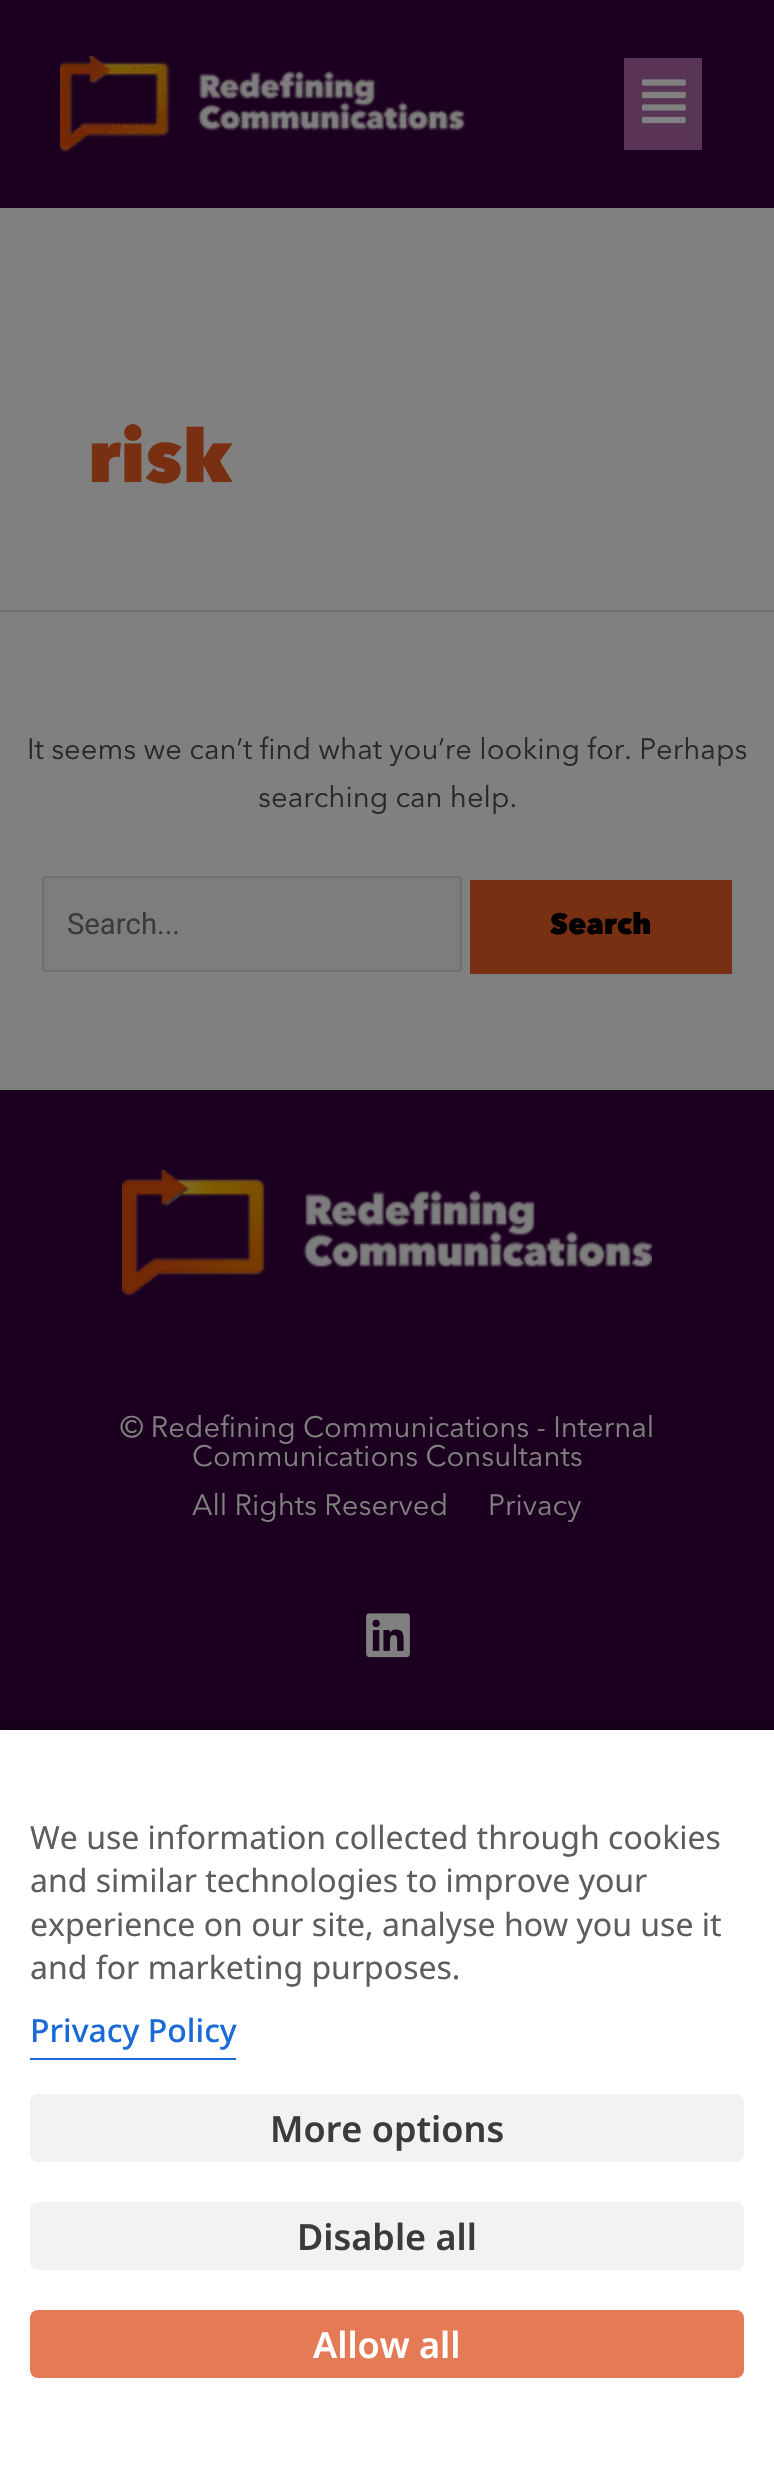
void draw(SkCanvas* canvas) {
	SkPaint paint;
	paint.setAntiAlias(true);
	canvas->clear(0xff808080);
	paint.setColor(0xff1b001f);
	canvas->drawRect(SkRect::MakeXYWH(0, 0, 774, 208), paint);
	canvas->drawImageRect(SkImages::DeferredFromEncodedData(SkData::MakeFromFileName("img1.png")), SkRect::MakeXYWH(60, 56, 405, 96), SkSamplingOptions());
	paint.setColor(0xff5a3455);
	canvas->drawRect(SkRect::MakeXYWH(624, 58, 78, 92), paint);
	canvas->drawImageRect(SkImages::DeferredFromEncodedData(SkData::MakeFromFileName("img2.png")), SkRect::MakeXYWH(642, 79, 44, 45), SkSamplingOptions());
	paint.setColor(0xff6f6f6f);
	canvas->drawRect(SkRect::MakeXYWH(0, 610, 774, 2), paint);
	SkFont f1(fontMgr->matchFamilyStyle("Avenir Next", SkFontStyle(900, SkFontStyle::kNormal_Width, SkFontStyle::kUpright_Slant)), 73);
	f1.setSubpixel(true);
	paint.setColor(0xff792f11);
	canvas->drawString("risk", 88, 482, f1, paint);
	SkFont f2(fontMgr->matchFamilyStyle("Avenir Next", SkFontStyle::Normal()), 29.2);
	f2.setSubpixel(true);
	paint.setColor(0xff26282c);
	canvas->drawString("It seems we can’t find what you’re looking for. Perhaps", 27, 759, f2, paint);
	canvas->drawString("searching can help.", 258, 807, f2, paint);
	paint.setColor(0xff7d7d7d);
	canvas->drawRoundRect(SkRect::MakeXYWH(43, 877, 418, 94), 3, 3, paint);
	paint.setStroke(true);
	paint.setStrokeWidth(2);
	paint.setColor(0xff6f6f6f);
	canvas->drawRoundRect(SkRect::MakeXYWH(43, 877, 418, 94), 3, 3, paint);
	SkFont f3(fontMgr->matchFamilyStyle("Roboto", SkFontStyle::Normal()), 29.2);
	f3.setSubpixel(true);
	paint.setStroke(false);
	paint.setColor(0xff3b3b3b);
	canvas->drawString("Search...", 67, 934, f3, paint);
	paint.setColor(0xff792f11);
	canvas->drawRect(SkRect::MakeXYWH(470, 880, 262, 94), paint);
	SkFont f4(fontMgr->matchFamilyStyle("Avenir Next", SkFontStyle(900, SkFontStyle::kNormal_Width, SkFontStyle::kUpright_Slant)), 29.2);
	f4.setSubpixel(true);
	paint.setColor(0xff000000);
	canvas->drawString("Search", 550, 934, f4, paint);
	paint.setColor(0xff1b001f);
	canvas->drawRect(SkRect::MakeXYWH(0, 1090, 774, 640), paint);
	canvas->drawImageRect(SkImages::DeferredFromEncodedData(SkData::MakeFromFileName("img3.png")), SkRect::MakeXYWH(122, 1170, 530, 126), SkSamplingOptions());
	paint.setColor(0xff808080);
	canvas->drawString("© Redefining Communications - Internal", 120, 1437, f2, paint);
	canvas->drawString("Communications Consultants", 192, 1466, f2, paint);
	canvas->drawString("All Rights Reserved", 192, 1515, f2, paint);
	canvas->drawString("Privacy", 488, 1515, f2, paint);
	canvas->drawImageRect(SkImages::DeferredFromEncodedData(SkData::MakeFromFileName("img4.png")), SkRect::MakeXYWH(366, 1613, 44, 45), SkSamplingOptions());
	paint.setColor(0x80000000);
	paint.setMaskFilter(SkMaskFilter::MakeBlur(kNormal_SkBlurStyle, 5));
	canvas->drawRect(SkRect::MakeXYWH(0, 1726, 774, 736), paint);
	paint.setMaskFilter(nullptr);
	paint.setColor(0xffffffff);
	canvas->drawRect(SkRect::MakeXYWH(0, 1730, 774, 735), paint);
	SkFont f5(fontMgr->matchFamilyStyle("Noto Sans", SkFontStyle::Normal()), 32);
	f5.setSubpixel(true);
	paint.setColor(0xff5d5d5d);
	canvas->drawString("We use information collected through cookies", 30, 1849, f5, paint);
	canvas->drawString("and similar technologies to improve your", 30, 1892, f5, paint);
	canvas->drawString("experience on our site, analyse how you use it", 30, 1936, f5, paint);
	canvas->drawString("and for marketing purposes.", 30, 1979, f5, paint);
	SkFont f6(fontMgr->matchFamilyStyle("Noto Sans", SkFontStyle(500, SkFontStyle::kNormal_Width, SkFontStyle::kUpright_Slant)), 32);
	f6.setSubpixel(true);
	paint.setColor(0xff1a6bd7);
	canvas->drawString("Privacy Policy", 30, 2042, f6, paint);
	canvas->drawRect(SkRect::MakeXYWH(30, 2058, 206, 2), paint);
	paint.setColor(0xfff2f2f2);
	canvas->drawRoundRect(SkRect::MakeXYWH(30, 2094, 714, 68), 8, 8, paint);
	SkFont f7(fontMgr->matchFamilyStyle("Noto Sans", SkFontStyle(600, SkFontStyle::kNormal_Width, SkFontStyle::kUpright_Slant)), 36);
	f7.setSubpixel(true);
	paint.setColor(0xff3b3b3b);
	canvas->drawString("More options", 270, 2142, f7, paint);
	paint.setColor(0xfff2f2f2);
	canvas->drawRoundRect(SkRect::MakeXYWH(30, 2202, 714, 68), 8, 8, paint);
	paint.setColor(0xff3b3b3b);
	canvas->drawString("Disable all", 297, 2250, f7, paint);
	paint.setColor(0xffe47a56);
	canvas->drawRoundRect(SkRect::MakeXYWH(30, 2310, 714, 68), 8, 8, paint);
	paint.setColor(0xffffffff);
	canvas->drawString("Allow all", 313, 2358, f7, paint);
}
